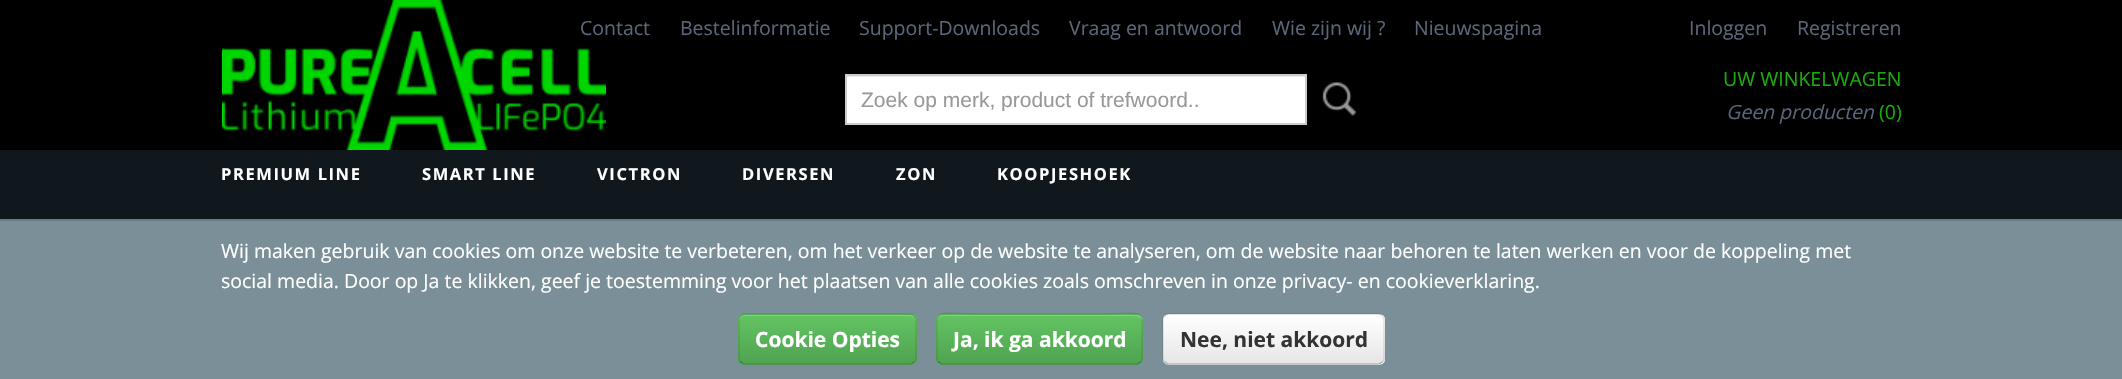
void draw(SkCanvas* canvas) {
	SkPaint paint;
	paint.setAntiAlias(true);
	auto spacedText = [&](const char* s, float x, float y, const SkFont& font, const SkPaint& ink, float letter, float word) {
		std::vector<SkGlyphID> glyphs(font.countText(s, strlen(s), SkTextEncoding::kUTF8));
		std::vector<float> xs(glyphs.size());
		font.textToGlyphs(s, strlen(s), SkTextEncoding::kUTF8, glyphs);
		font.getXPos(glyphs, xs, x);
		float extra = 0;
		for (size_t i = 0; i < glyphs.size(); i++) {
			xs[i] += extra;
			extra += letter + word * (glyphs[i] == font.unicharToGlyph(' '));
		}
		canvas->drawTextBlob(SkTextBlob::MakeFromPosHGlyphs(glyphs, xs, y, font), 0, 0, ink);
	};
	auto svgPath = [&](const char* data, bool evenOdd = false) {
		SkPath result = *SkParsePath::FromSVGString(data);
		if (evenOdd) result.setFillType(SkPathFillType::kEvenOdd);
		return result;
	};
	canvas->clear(0xff000000);
	canvas->drawImageRect(SkImages::DeferredFromEncodedData(SkData::MakeFromFileName("img1.png")), SkRect::MakeXYWH(222, 0, 384, 150), SkSamplingOptions());
	SkFont f1(fontMgr->matchFamilyStyle("Open Sans", SkFontStyle::Normal()), 19.5);
	f1.setSubpixel(true);
	paint.setColor(0xff5b6679);
	canvas->drawString("Contact", 580, 35, f1, paint);
	canvas->drawString("Bestelinformatie", 680, 35, f1, paint);
	canvas->drawString("Support-Downloads", 859, 35, f1, paint);
	canvas->drawString("Vraag en antwoord", 1069, 35, f1, paint);
	canvas->drawString("Wie zijn wij ?", 1272, 35, f1, paint);
	canvas->drawString("Nieuwspagina", 1414, 35, f1, paint);
	canvas->drawString("Inloggen", 1689, 35, f1, paint);
	canvas->drawString("Registreren", 1797, 35, f1, paint);
	paint.setColor(0xff1cab0c);
	canvas->drawString("UW WINKELWAGEN", 1723, 86, f1, paint);
	SkFont f2(fontMgr->matchFamilyStyle("Open Sans", SkFontStyle::Italic()), 19.5);
	f2.setSubpixel(true);
	paint.setColor(0xff5b6679);
	canvas->drawString("Geen producten", 1726, 119, f2, paint);
	paint.setColor(0xff1cab0c);
	canvas->drawString("(0)", 1879, 119, f1, paint);
	paint.setColor(0xffffffff);
	canvas->drawRect(SkRect::MakeXYWH(847, 77, 458, 46), paint);
	paint.setColor(0xffececec);
	canvas->drawRect(SkRect::MakeXYWH(846, 76, 459, 1), paint);
	paint.setStroke(true);
	paint.setStrokeWidth(2);
	paint.setColor(0xffcccccc);
	canvas->drawRect(SkRect::MakeXYWH(846, 75, 460, 49), paint);
	canvas->save();
	canvas->clipRect(SkRect::MakeXYWH(861, 87, 429, 24));
	SkFont f3(fontMgr->matchFamilyStyle("Liberation Sans", SkFontStyle::Normal()), 21);
	f3.setSubpixel(true);
	paint.setStroke(false);
	paint.setColor(0xff999999);
	canvas->drawString("Zoek op merk, product of trefwoord..", 861, 107, f3, paint);
	canvas->restore();
	canvas->drawImageRect(SkImages::DeferredFromEncodedData(SkData::MakeFromFileName("img2.png")), SkRect::MakeXYWH(1322, 82, 34, 34), SkSamplingOptions());
	paint.setColor(0xff10171d);
	canvas->drawRect(SkRect::MakeXYWH(0, 150, 2122, 69), paint);
	SkFont f4(fontMgr->matchFamilyStyle("Open Sans", SkFontStyle::Bold()), 16.5);
	f4.setSubpixel(true);
	paint.setColor(0xffffffff);
	spacedText("PREMIUM LINE", 221, 180, f4, paint, 1.6, 0);
	spacedText("SMART LINE", 422, 180, f4, paint, 1.6, 0);
	spacedText("VICTRON", 597, 180, f4, paint, 1.6, 0);
	spacedText("DIVERSEN", 742, 180, f4, paint, 1.6, 0);
	spacedText("ZON", 896, 180, f4, paint, 1.6, 0);
	spacedText("KOOPJESHOEK", 997, 180, f4, paint, 1.6, 0);
	paint.setColor(0xff7a8f98);
	canvas->drawRect(SkRect::MakeXYWH(0, 221, 2122, 158), paint);
	paint.setColor(0xff697e87);
	canvas->drawRect(SkRect::MakeXYWH(0, 219, 2122, 2), paint);
	paint.setColor(0xffffffff);
	canvas->drawString("Wij maken gebruik van cookies om onze website te verbeteren, om het verkeer op de website te analyseren, om de website naar behoren te laten werken en voor de koppeling met", 221, 258, f1, paint);
	canvas->drawString("social media. Door op Ja te klikken, geef je toestemming voor het plaatsen van alle cookies zoals omschreven in onze privacy- en cookieverklaring.", 221, 288, f1, paint);
	paint.setColor(0xff5bb75b);
	canvas->drawRoundRect(SkRect::MakeXYWH(738, 314, 179, 51), 6, 6, paint);
	canvas->save();
	canvas->clipPath(svgPath("M744 314H911C914.5 314 917 316.5 917 320V359C917 362.5 914.5 365 911 365H744C740.5 365 738 362.5 738 359V320C738 316.5 740.5 314 744 314Z"), true);
	{
		const SkColor colors[] = {0xff62c462, 0xff51a351};
		const float stops[] = {0, 1};
		const SkPoint ends[] = {{827, 315}, {827, 363}};
		paint.setShader(SkGradientShader::MakeLinear(ends, colors, stops, 2, SkTileMode::kClamp));
		paint.setAlpha(255);
	}
	canvas->drawRect(SkRect::MakeXYWH(738, 315, 179, 48), paint);
	canvas->restore();
	paint.setShader(nullptr);
	paint.setColor(0xff81d081);
	canvas->drawPath(svgPath("M744 316H910C913 316 915 319 915 321C915 318 914 316 911 315H745L742 316C740 317 740 319 740 321C740 319 742 316 744 316Z"), paint);
	paint.setStroke(true);
	paint.setStrokeWidth(1.5);
	paint.setColor(0x40000000);
	canvas->drawPath(svgPath("M914 362C913 363 912 364 910.5 364H744C742.5 364 741.5 363 740.5 362"), paint);
	paint.setColor(0x1a000000);
	canvas->drawPath(svgPath("M740.5 362C739.5 361 739 360 739 358.5V319.5C739 318 739.5 317 740.5 316C741.5 315 742.5 314 744 314H910.5C912 314 913 315 914 316C915 317 916 318 916 319.5V358.5C916 360 915 361 914 362"), paint);
	SkFont f5(fontMgr->matchFamilyStyle("Open Sans", SkFontStyle::Bold()), 21);
	f5.setSubpixel(true);
	paint.setStroke(false);
	paint.setColor(0xffffffff);
	canvas->drawString("Cookie Opties", 755, 347, f5, paint);
	paint.setColor(0xff5bb75b);
	canvas->drawRoundRect(SkRect::MakeXYWH(936, 314, 207, 51), 6, 6, paint);
	canvas->save();
	canvas->clipPath(svgPath("M942 314H1137C1140.5 314 1143 316.5 1143 320V359C1143 362.5 1140.5 365 1137 365H942C938.5 365 936 362.5 936 359V320C936 316.5 938.5 314 942 314Z"), true);
	{
		const SkColor colors[] = {0xff62c462, 0xff51a351};
		const float stops[] = {0, 1};
		const SkPoint ends[] = {{1040, 315}, {1040, 363}};
		paint.setShader(SkGradientShader::MakeLinear(ends, colors, stops, 2, SkTileMode::kClamp));
		paint.setAlpha(255);
	}
	canvas->drawRect(SkRect::MakeXYWH(936, 315, 207, 48), paint);
	canvas->restore();
	paint.setShader(nullptr);
	paint.setColor(0x33ffffff);
	canvas->drawPath(svgPath("M942 316H1137L1140 318L1142 321V320C1142 317 1140 315 1137 315H943C940 315 938 317 938 320V321C938 319 940 316 942 316Z"), paint);
	paint.setStroke(true);
	paint.setColor(0x40000000);
	canvas->drawPath(svgPath("M1140.5 362C1139.5 363 1138.5 364 1137 364H942C940.5 364 939.5 363 938.5 362"), paint);
	paint.setColor(0x1a000000);
	canvas->drawPath(svgPath("M938.5 362C936 359.5 937 355 937 352V345.5C937 306 930.5 314 974.5 314H1104.5C1148.5 314 1142 306 1142 345.5V352C1142 355 1143 359.5 1140.5 362"), paint);
	paint.setStroke(false);
	paint.setColor(0xffffffff);
	canvas->drawString("Ja, ik ga akkoord", 953, 347, f5, paint);
	paint.setColor(0xfff5f5f5);
	canvas->drawRoundRect(SkRect::MakeXYWH(1163, 314, 222, 51), 6, 6, paint);
	canvas->save();
	canvas->clipPath(svgPath("M1169 314H1379C1382.5 314 1385 316.5 1385 320V359C1385 362.5 1382.5 365 1379 365H1169C1165.5 365 1163 362.5 1163 359V320C1163 316.5 1165.5 314 1169 314Z"), true);
	{
		const SkColor colors[] = {0xffffffff, 0xffe6e6e6};
		const float stops[] = {0, 1};
		const SkPoint ends[] = {{1274, 315}, {1274, 363}};
		paint.setShader(SkGradientShader::MakeLinear(ends, colors, stops, 2, SkTileMode::kClamp));
		paint.setAlpha(255);
	}
	canvas->drawRect(SkRect::MakeXYWH(1163, 315, 222, 48), paint);
	canvas->restore();
	paint.setStroke(true);
	paint.setShader(nullptr);
	paint.setColor(0x40000000);
	canvas->drawPath(svgPath("M1382 362C1381 363 1380 364 1378.5 364H1168.5C1167 364 1166 363 1165 362"), paint);
	paint.setColor(0x1a000000);
	canvas->drawPath(svgPath("M1165 362C1164 361 1163 360 1163 358.5V319.5C1163 318 1164 317 1165 316C1166 315 1167 314 1168.5 314H1378.5C1380 314 1381 315 1382 316C1383 317 1384 318 1384 319.5V358.5C1384 360 1383 361 1382 362"), paint);
	paint.setStroke(false);
	paint.setColor(0xff333333);
	canvas->drawString("Nee, niet akkoord", 1180, 347, f5, paint);
}
